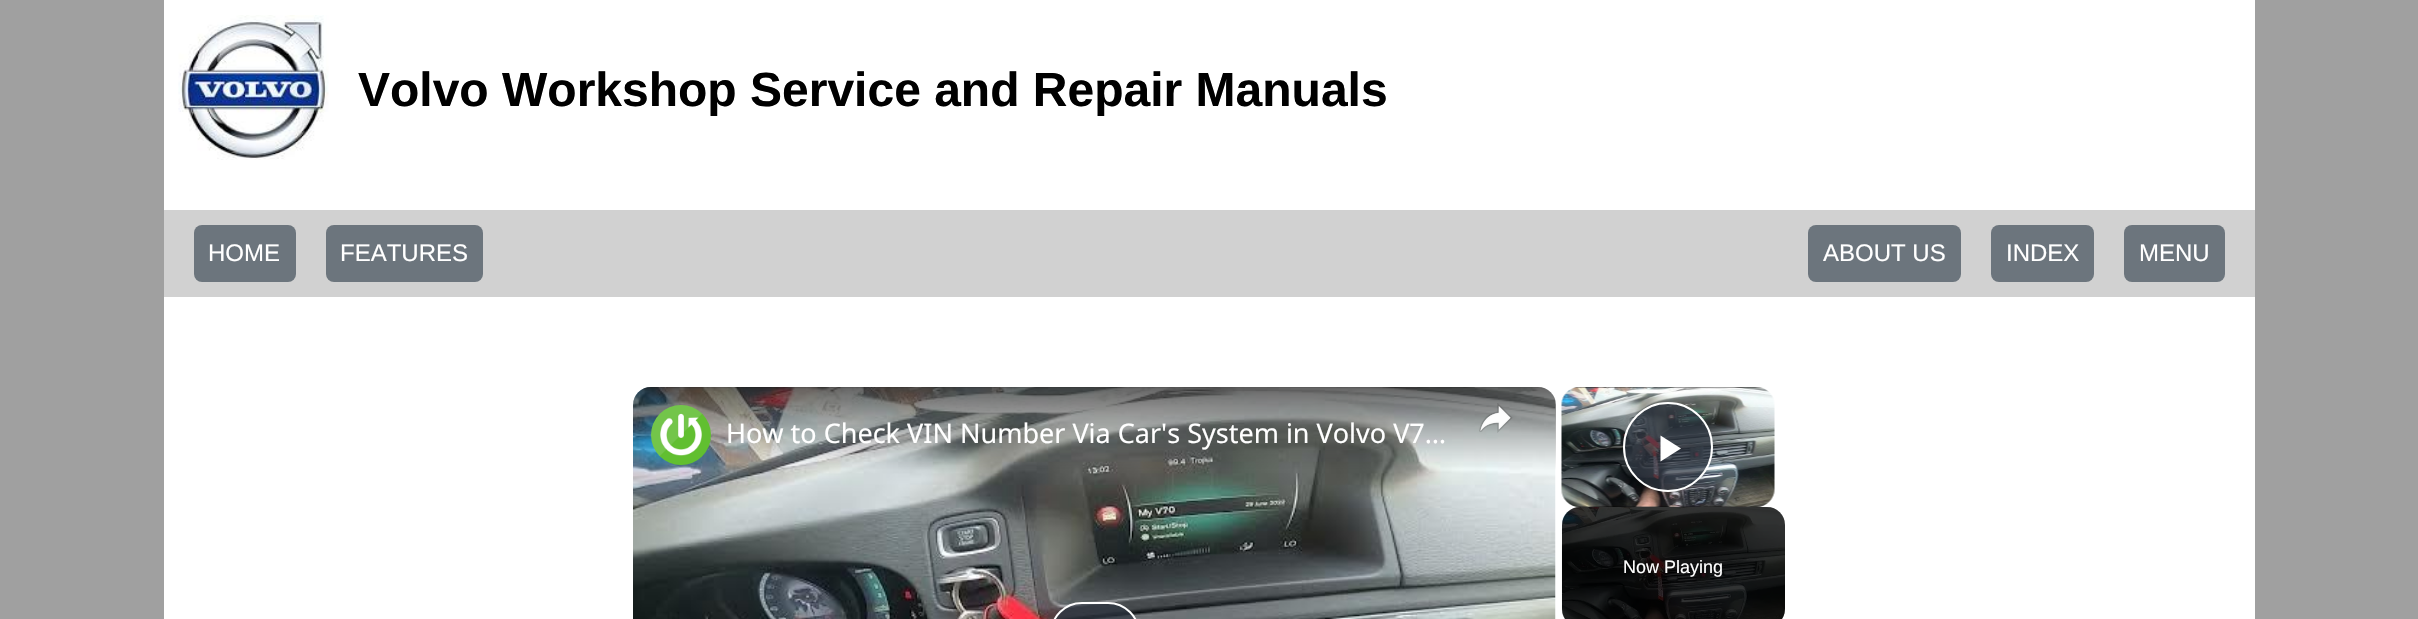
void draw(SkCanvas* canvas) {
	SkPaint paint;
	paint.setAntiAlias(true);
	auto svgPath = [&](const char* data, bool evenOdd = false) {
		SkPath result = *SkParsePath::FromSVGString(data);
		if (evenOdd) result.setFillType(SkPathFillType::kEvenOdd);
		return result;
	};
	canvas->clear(0xffa0a0a0);
	paint.setColor(0xffffffff);
	canvas->drawRect(SkRect::MakeXYWH(164, 0, 2091, 619), paint);
	canvas->drawImageRect(SkImages::DeferredFromEncodedData(SkData::MakeFromFileName("img1.png")), SkRect::MakeXYWH(178, 15, 151, 145), SkSamplingOptions());
	SkFont f1(fontMgr->matchFamilyStyle("Liberation Sans", SkFontStyle::Bold()), 48);
	f1.setSubpixel(true);
	paint.setColor(0xff000000);
	canvas->drawString("Volvo Workshop Service and Repair Manuals", 358, 106, f1, paint);
	paint.setColor(0xffd1d1d1);
	canvas->drawRect(SkRect::MakeXYWH(164, 210, 2091, 87), paint);
	paint.setColor(0xff6c757d);
	canvas->drawRoundRect(SkRect::MakeXYWH(194, 225, 102, 57), 8, 8, paint);
	SkFont f2(fontMgr->matchFamilyStyle("Liberation Sans", SkFontStyle::Normal()), 24);
	f2.setSubpixel(true);
	paint.setColor(0xffffffff);
	canvas->drawString("HOME", 208, 261, f2, paint);
	paint.setColor(0xff6c757d);
	canvas->drawRoundRect(SkRect::MakeXYWH(326, 225, 157, 57), 8, 8, paint);
	paint.setColor(0xffffffff);
	canvas->drawString("FEATURES", 340, 261, f2, paint);
	paint.setColor(0xff6c757d);
	canvas->drawRoundRect(SkRect::MakeXYWH(1808, 225, 153, 57), 8, 8, paint);
	paint.setColor(0xffffffff);
	canvas->drawString("ABOUT US", 1823, 261, f2, paint);
	paint.setColor(0xff6c757d);
	canvas->drawRoundRect(SkRect::MakeXYWH(1991, 225, 103, 57), 8, 8, paint);
	paint.setColor(0xffffffff);
	canvas->drawString("INDEX", 2006, 261, f2, paint);
	paint.setColor(0xff6c757d);
	canvas->drawRoundRect(SkRect::MakeXYWH(2124, 225, 101, 57), 8, 8, paint);
	paint.setColor(0xffffffff);
	canvas->drawString("MENU", 2139, 261, f2, paint);
	canvas->drawImageRect(SkImages::DeferredFromEncodedData(SkData::MakeFromFileName("img2.png")), SkRect::MakeXYWH(633, 387, 923, 232), SkSamplingOptions());
	paint.setColor(0xb32b333f);
	canvas->drawRoundRect(SkRect::MakeXYWH(1051, 603, 88, 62), 44, 44, paint);
	paint.setStroke(true);
	paint.setStrokeWidth(2);
	paint.setColor(0xffffffff);
	canvas->drawRoundRect(SkRect::MakeXYWH(1051, 603, 88, 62), 44, 44, paint);
	paint.setStroke(false);
	{
		const SkColor colors[] = {0x99000000, 0x00000000, 0x00000000, 0xcc000000};
		const float stops[] = {0, 0.16, 0.84, 1};
		const SkPoint ends[] = {{1094, 387}, {1094, 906}};
		paint.setShader(SkGradientShader::MakeLinear(ends, colors, stops, 4, SkTileMode::kClamp));
		paint.setAlpha(255);
	}
	canvas->drawRoundRect(SkRect::MakeXYWH(633, 387, 923, 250), 18, 18, paint);
	canvas->drawImageRect(SkImages::DeferredFromEncodedData(SkData::MakeFromFileName("img3.png")), SkRect::MakeXYWH(651, 405, 60, 60), SkSamplingOptions());
	SkFont f3(fontMgr->matchFamilyStyle("Noto Sans", SkFontStyle::Normal()), 27);
	f3.setSubpixel(true);
	paint.setShader(nullptr);
	paint.setColor(0xffffffff);
	canvas->drawString("How to Check VIN Number Via Car's System in Volvo V7…", 726, 443, f3, paint);
	canvas->drawImageRect(SkImages::DeferredFromEncodedData(SkData::MakeFromFileName("img4.png")), SkRect::MakeXYWH(1479, 403, 34, 30), SkSamplingOptions());
	canvas->drawImageRect(SkImages::DeferredFromEncodedData(SkData::MakeFromFileName("img5.png")), SkRect::MakeXYWH(1561, 387, 214, 120), SkSamplingOptions());
	paint.setColor(0xb32b333f);
	canvas->drawCircle(1668, 447, 44, paint);
	paint.setStroke(true);
	paint.setColor(0xffffffff);
	canvas->drawCircle(1668, 447, 44, paint);
	paint.setStroke(false);
	canvas->drawPath(svgPath("M1660.5 435.5V461.5L1681 448.5Z"), paint);
	paint.setColor(0xff000000);
	canvas->drawRoundRect(SkRect::MakeXYWH(1562, 507, 223, 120), 18, 18, paint);
	canvas->drawImageRect(SkImages::DeferredFromEncodedData(SkData::MakeFromFileName("img6.png")), SkRect::MakeXYWH(1561, 507, 224, 112), SkSamplingOptions());
	SkFont f4(fontMgr->matchFamilyStyle("Liberation Sans", SkFontStyle::Normal()), 18);
	f4.setSubpixel(true);
	paint.setColor(0xffffffff);
	canvas->drawString("Now Playing", 1623, 573, f4, paint);
}
